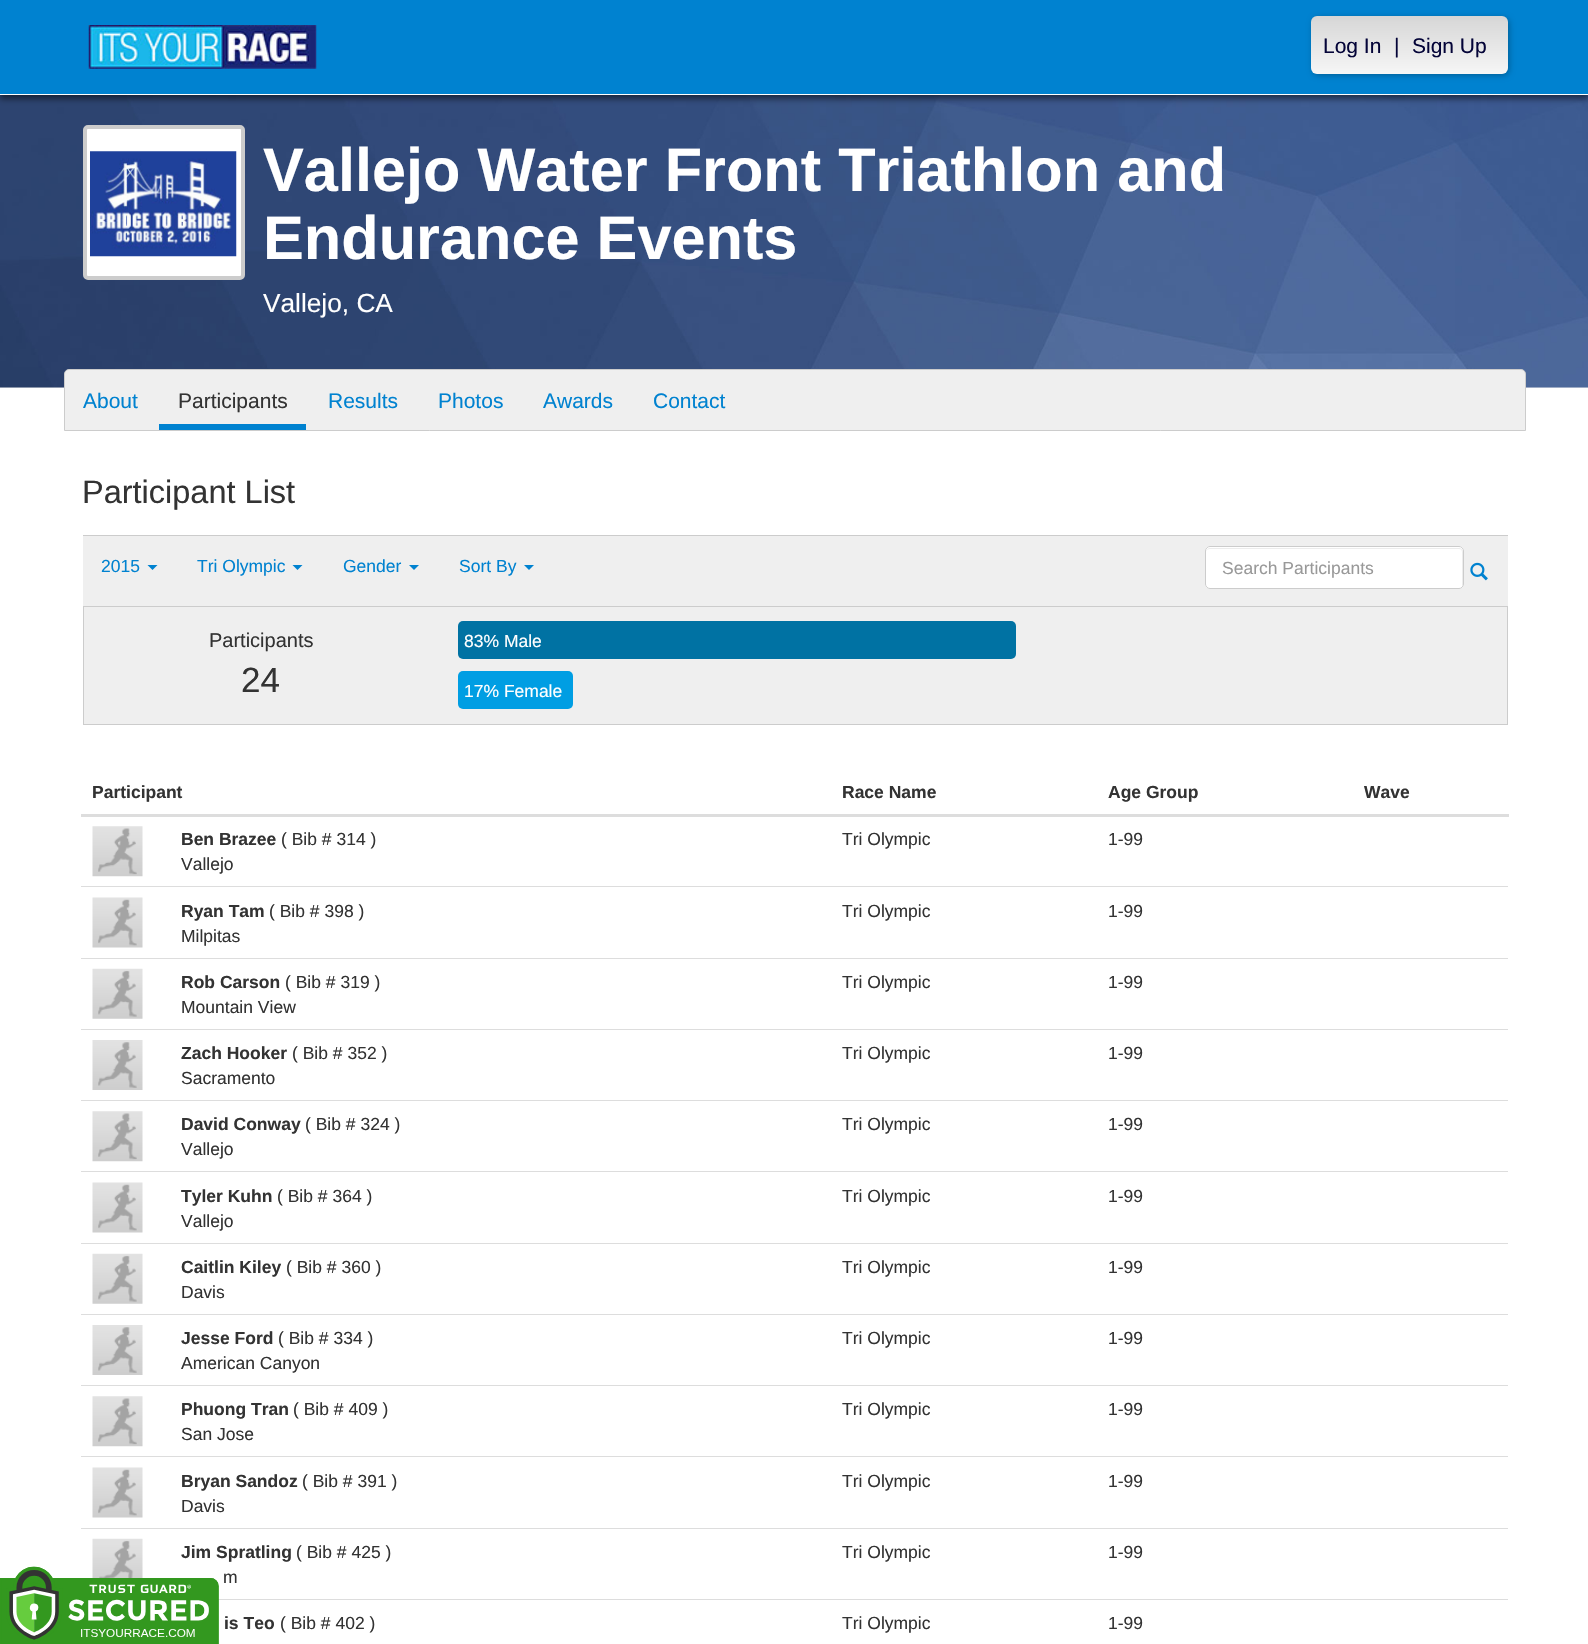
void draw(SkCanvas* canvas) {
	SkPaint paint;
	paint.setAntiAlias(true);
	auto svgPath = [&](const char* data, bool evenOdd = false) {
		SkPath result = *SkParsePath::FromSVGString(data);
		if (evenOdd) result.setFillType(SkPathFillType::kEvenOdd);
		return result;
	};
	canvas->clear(0xffffffff);
	paint.setColor(0xffeeeeee);
	canvas->drawRect(SkRect::MakeXYWH(0, 387, 1588, 1), paint);
	canvas->drawImageRect(SkImages::DeferredFromEncodedData(SkData::MakeFromFileName("img2.png")), SkRect::MakeXYWH(0, 95, 1588, 293), SkSamplingOptions());
	paint.setColor(0x80000000);
	paint.setMaskFilter(SkMaskFilter::MakeBlur(kNormal_SkBlurStyle, 3));
	canvas->drawRect(SkRect::MakeXYWH(0, 4, 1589, 95), paint);
	paint.setMaskFilter(nullptr);
	paint.setColor(0xff0082d0);
	canvas->drawRect(SkRect::MakeXYWH(0, 0, 1588, 94), paint);
	paint.setColor(0xffffffff);
	canvas->drawRect(SkRect::MakeXYWH(0, 94, 1588, 1), paint);
	canvas->drawImageRect(SkImages::DeferredFromEncodedData(SkData::MakeFromFileName("img1.png")), SkRect::MakeXYWH(88, 25, 229, 44), SkSamplingOptions());
	paint.setColor(0x4d000000);
	paint.setMaskFilter(SkMaskFilter::MakeBlur(kNormal_SkBlurStyle, 3));
	canvas->drawRoundRect(SkRect::MakeXYWH(1313, 18, 196, 57), 6, 6, paint);
	paint.setMaskFilter(nullptr);
	{
		const SkColor colors[] = {0xffd6d6d6, 0xfff6f6f6};
		const float stops[] = {0, 1};
		const SkPoint ends[] = {{1409, 16}, {1409, 74}};
		paint.setShader(SkGradientShader::MakeLinear(ends, colors, stops, 2, SkTileMode::kClamp));
		paint.setAlpha(255);
	}
	canvas->drawRoundRect(SkRect::MakeXYWH(1311, 16, 197, 58), 6, 6, paint);
	SkFont f1(fontMgr->matchFamilyStyle("Liberation Sans", SkFontStyle::Normal()), 21);
	f1.setSubpixel(true);
	paint.setShader(nullptr);
	paint.setColor(0xff040438);
	canvas->drawString("Log In", 1323, 53, f1, paint);
	canvas->drawString("|", 1394, 53, f1, paint);
	canvas->drawString("Sign Up", 1412, 53, f1, paint);
	paint.setColor(0xffffffff);
	canvas->drawRoundRect(SkRect::MakeXYWH(85, 127, 158, 151), 3, 3, paint);
	paint.setStroke(true);
	paint.setStrokeWidth(4);
	paint.setColor(0xffcccccc);
	canvas->drawRoundRect(SkRect::MakeXYWH(85, 127, 158, 151), 3, 3, paint);
	canvas->drawImageRect(SkImages::DeferredFromEncodedData(SkData::MakeFromFileName("img3.png")), SkRect::MakeXYWH(90, 151, 147, 106), SkSamplingOptions());
	SkFont f2(fontMgr->matchFamilyStyle("Liberation Sans", SkFontStyle::Bold()), 61.25);
	f2.setSubpixel(true);
	paint.setStroke(false);
	paint.setColor(0xffffffff);
	canvas->drawString("Vallejo Water Front Triathlon and", 263, 191, f2, paint);
	canvas->drawString("Endurance Events", 263, 259, f2, paint);
	SkFont f3(fontMgr->matchFamilyStyle("Liberation Sans", SkFontStyle::Normal()), 26.25);
	f3.setSubpixel(true);
	canvas->drawString("Vallejo, CA", 263, 312, f3, paint);
	paint.setColor(0xffefefef);
	canvas->drawPath(svgPath("M69 369.5H1521C1523.5 369.5 1525.5 371.5 1525.5 374V430.5H64.5V374C64.5 371.5 66.5 369.5 69 369.5Z"), paint);
	paint.setStroke(true);
	paint.setStrokeWidth(1);
	paint.setColor(0xffcccccc);
	canvas->drawPath(svgPath("M69 369.5H1521C1523.5 369.5 1525.5 371.5 1525.5 374V430.5H64.5V374C64.5 371.5 66.5 369.5 69 369.5Z"), paint);
	paint.setStroke(false);
	paint.setColor(0xff0082d0);
	canvas->drawString("About", 83, 408, f1, paint);
	canvas->drawRect(SkRect::MakeXYWH(159, 424, 147, 6), paint);
	paint.setColor(0xff333333);
	canvas->drawString("Participants", 178, 408, f1, paint);
	paint.setColor(0xff0082d0);
	canvas->drawString("Results", 328, 408, f1, paint);
	canvas->drawString("Photos", 438, 408, f1, paint);
	canvas->drawString("Awards", 543, 408, f1, paint);
	canvas->drawString("Contact", 653, 408, f1, paint);
	SkFont f4(fontMgr->matchFamilyStyle("Liberation Sans", SkFontStyle::Normal()), 32.5);
	f4.setSubpixel(true);
	paint.setColor(0xff333333);
	canvas->drawString("Participant List", 82, 503, f4, paint);
	paint.setColor(0xffefefef);
	canvas->drawRect(SkRect::MakeXYWH(83, 536, 1425, 70), paint);
	paint.setColor(0xffcccccc);
	canvas->drawRect(SkRect::MakeXYWH(83, 535, 1425, 1), paint);
	SkFont f5(fontMgr->matchFamilyStyle("Liberation Sans", SkFontStyle::Normal()), 17.5);
	f5.setSubpixel(true);
	paint.setColor(0xff0082d0);
	canvas->drawString("2015", 101, 572, f5, paint);
	canvas->drawPath(svgPath("M147.5 565H157.5L152.5 570Z"), paint);
	canvas->drawString("Tri Olympic", 197, 572, f5, paint);
	canvas->drawPath(svgPath("M292.5 565H302.5L297.5 570Z"), paint);
	canvas->drawString("Gender", 343, 572, f5, paint);
	canvas->drawPath(svgPath("M409 565H419L414 570Z"), paint);
	canvas->drawString("Sort By", 459, 572, f5, paint);
	canvas->drawPath(svgPath("M524 565H534L529 570Z"), paint);
	paint.setColor(0xffffffff);
	canvas->drawRoundRect(SkRect::MakeXYWH(1205, 546, 259, 43), 5, 5, paint);
	paint.setColor(0xffececec);
	canvas->drawPath(svgPath("M1210 549H1459C1461 549 1462 550 1462 552V587C1462 586 1463 585 1463 584V552C1463 550 1461 548 1459 548H1210C1208 548 1206 550 1206 552C1206 550 1208 549 1210 549Z"), paint);
	paint.setStroke(true);
	paint.setColor(0xffcccccc);
	canvas->drawRoundRect(SkRect::MakeXYWH(1205.5, 546.5, 258, 42), 4.5, 4.5, paint);
	paint.setStroke(false);
	paint.setColor(0xff999999);
	canvas->drawString("Search Participants", 1222, 574, f5, paint);
	canvas->drawImageRect(SkImages::DeferredFromEncodedData(SkData::MakeFromFileName("img4.png")), SkRect::MakeXYWH(1470, 562, 18, 19), SkSamplingOptions());
	paint.setColor(0xffefefef);
	canvas->drawRect(SkRect::MakeXYWH(83.5, 606.5, 1424, 118), paint);
	paint.setStroke(true);
	paint.setColor(0xffcccccc);
	canvas->drawRect(SkRect::MakeXYWH(83.5, 606.5, 1424, 118), paint);
	SkFont f6(fontMgr->matchFamilyStyle("Liberation Sans", SkFontStyle::Normal()), 20);
	f6.setSubpixel(true);
	paint.setStroke(false);
	paint.setColor(0xff333333);
	canvas->drawString("Participants", 209, 647, f6, paint);
	SkFont f7(fontMgr->matchFamilyStyle("Liberation Sans", SkFontStyle::Normal()), 35);
	f7.setSubpixel(true);
	canvas->drawString("24", 241, 692, f7, paint);
	paint.setColor(0xff0072a3);
	canvas->drawRoundRect(SkRect::MakeXYWH(458, 621, 558, 38), 5, 5, paint);
	paint.setColor(0xffffffff);
	canvas->drawString("83% Male", 464, 647, f5, paint);
	paint.setColor(0xff009ee3);
	canvas->drawRoundRect(SkRect::MakeXYWH(458, 671, 115, 38), 5, 5, paint);
	paint.setColor(0xffffffff);
	canvas->drawString("17% Female", 464, 697, f5, paint);
	SkFont f8(fontMgr->matchFamilyStyle("Liberation Sans", SkFontStyle::Bold()), 17.5);
	f8.setSubpixel(true);
	paint.setColor(0xff333333);
	canvas->drawString("Participant", 92, 798, f8, paint);
	canvas->drawString("Race Name", 842, 798, f8, paint);
	canvas->drawString("Age Group", 1108, 798, f8, paint);
	paint.setColor(0xffdddddd);
	canvas->drawRect(SkRect::MakeXYWH(81, 814, 1428, 3), paint);
	paint.setColor(0xff333333);
	canvas->drawString("Wave", 1364, 798, f8, paint);
	canvas->drawImageRect(SkImages::DeferredFromEncodedData(SkData::MakeFromFileName("img5.png")), SkRect::MakeXYWH(92, 826, 51, 51), SkSamplingOptions());
	canvas->drawString("Ben Brazee", 181, 845, f8, paint);
	canvas->drawString("( Bib # 314 )", 281, 845, f5, paint);
	canvas->drawString("Vallejo", 181, 870, f5, paint);
	canvas->drawString("Tri Olympic", 842, 845, f5, paint);
	canvas->drawString("1-99", 1108, 845, f5, paint);
	paint.setColor(0xffdddddd);
	canvas->drawRect(SkRect::MakeXYWH(81, 886, 1427, 1), paint);
	canvas->drawImageRect(SkImages::DeferredFromEncodedData(SkData::MakeFromFileName("img6.png")), SkRect::MakeXYWH(92, 897, 51, 51), SkSamplingOptions());
	paint.setColor(0xff333333);
	canvas->drawString("Ryan Tam", 181, 917, f8, paint);
	canvas->drawString("( Bib # 398 )", 269, 917, f5, paint);
	canvas->drawString("Milpitas", 181, 942, f5, paint);
	canvas->drawString("Tri Olympic", 842, 917, f5, paint);
	canvas->drawString("1-99", 1108, 917, f5, paint);
	paint.setColor(0xffdddddd);
	canvas->drawRect(SkRect::MakeXYWH(81, 958, 1427, 1), paint);
	canvas->drawImageRect(SkImages::DeferredFromEncodedData(SkData::MakeFromFileName("img7.png")), SkRect::MakeXYWH(92, 968, 51, 51), SkSamplingOptions());
	paint.setColor(0xff333333);
	canvas->drawString("Rob Carson", 181, 988, f8, paint);
	canvas->drawString("( Bib # 319 )", 285, 988, f5, paint);
	canvas->drawString("Mountain View", 181, 1013, f5, paint);
	canvas->drawString("Tri Olympic", 842, 988, f5, paint);
	canvas->drawString("1-99", 1108, 988, f5, paint);
	paint.setColor(0xffdddddd);
	canvas->drawRect(SkRect::MakeXYWH(81, 1029, 1427, 1), paint);
	canvas->drawImageRect(SkImages::DeferredFromEncodedData(SkData::MakeFromFileName("img8.png")), SkRect::MakeXYWH(92, 1040, 51, 50), SkSamplingOptions());
	paint.setColor(0xff333333);
	canvas->drawString("Zach Hooker", 181, 1059, f8, paint);
	canvas->drawString("( Bib # 352 )", 292, 1059, f5, paint);
	canvas->drawString("Sacramento", 181, 1084, f5, paint);
	canvas->drawString("Tri Olympic", 842, 1059, f5, paint);
	canvas->drawString("1-99", 1108, 1059, f5, paint);
	paint.setColor(0xffdddddd);
	canvas->drawRect(SkRect::MakeXYWH(81, 1100, 1427, 1), paint);
	canvas->drawImageRect(SkImages::DeferredFromEncodedData(SkData::MakeFromFileName("img5.png")), SkRect::MakeXYWH(92, 1111, 51, 51), SkSamplingOptions());
	paint.setColor(0xff333333);
	canvas->drawString("David Conway", 181, 1130, f8, paint);
	canvas->drawString("( Bib # 324 )", 305, 1130, f5, paint);
	canvas->drawString("Vallejo", 181, 1155, f5, paint);
	canvas->drawString("Tri Olympic", 842, 1130, f5, paint);
	canvas->drawString("1-99", 1108, 1130, f5, paint);
	paint.setColor(0xffdddddd);
	canvas->drawRect(SkRect::MakeXYWH(81, 1171, 1427, 1), paint);
	canvas->drawImageRect(SkImages::DeferredFromEncodedData(SkData::MakeFromFileName("img6.png")), SkRect::MakeXYWH(92, 1182, 51, 51), SkSamplingOptions());
	paint.setColor(0xff333333);
	canvas->drawString("Tyler Kuhn", 181, 1202, f8, paint);
	canvas->drawString("( Bib # 364 )", 277, 1202, f5, paint);
	canvas->drawString("Vallejo", 181, 1227, f5, paint);
	canvas->drawString("Tri Olympic", 842, 1202, f5, paint);
	canvas->drawString("1-99", 1108, 1202, f5, paint);
	paint.setColor(0xffdddddd);
	canvas->drawRect(SkRect::MakeXYWH(81, 1243, 1427, 1), paint);
	canvas->drawImageRect(SkImages::DeferredFromEncodedData(SkData::MakeFromFileName("img7.png")), SkRect::MakeXYWH(92, 1253, 51, 51), SkSamplingOptions());
	paint.setColor(0xff333333);
	canvas->drawString("Caitlin Kiley", 181, 1273, f8, paint);
	canvas->drawString("( Bib # 360 )", 286, 1273, f5, paint);
	canvas->drawString("Davis", 181, 1298, f5, paint);
	canvas->drawString("Tri Olympic", 842, 1273, f5, paint);
	canvas->drawString("1-99", 1108, 1273, f5, paint);
	paint.setColor(0xffdddddd);
	canvas->drawRect(SkRect::MakeXYWH(81, 1314, 1427, 1), paint);
	canvas->drawImageRect(SkImages::DeferredFromEncodedData(SkData::MakeFromFileName("img8.png")), SkRect::MakeXYWH(92, 1325, 51, 50), SkSamplingOptions());
	paint.setColor(0xff333333);
	canvas->drawString("Jesse Ford", 181, 1344, f8, paint);
	canvas->drawString("( Bib # 334 )", 278, 1344, f5, paint);
	canvas->drawString("American Canyon", 181, 1369, f5, paint);
	canvas->drawString("Tri Olympic", 842, 1344, f5, paint);
	canvas->drawString("1-99", 1108, 1344, f5, paint);
	paint.setColor(0xffdddddd);
	canvas->drawRect(SkRect::MakeXYWH(81, 1385, 1427, 1), paint);
	canvas->drawImageRect(SkImages::DeferredFromEncodedData(SkData::MakeFromFileName("img5.png")), SkRect::MakeXYWH(92, 1396, 51, 51), SkSamplingOptions());
	paint.setColor(0xff333333);
	canvas->drawString("Phuong Tran", 181, 1415, f8, paint);
	canvas->drawString("( Bib # 409 )", 293, 1415, f5, paint);
	canvas->drawString("San Jose", 181, 1440, f5, paint);
	canvas->drawString("Tri Olympic", 842, 1415, f5, paint);
	canvas->drawString("1-99", 1108, 1415, f5, paint);
	paint.setColor(0xffdddddd);
	canvas->drawRect(SkRect::MakeXYWH(81, 1456, 1427, 1), paint);
	canvas->drawImageRect(SkImages::DeferredFromEncodedData(SkData::MakeFromFileName("img6.png")), SkRect::MakeXYWH(92, 1467, 51, 51), SkSamplingOptions());
	paint.setColor(0xff333333);
	canvas->drawString("Bryan Sandoz", 181, 1487, f8, paint);
	canvas->drawString("( Bib # 391 )", 302, 1487, f5, paint);
	canvas->drawString("Davis", 181, 1512, f5, paint);
	canvas->drawString("Tri Olympic", 842, 1487, f5, paint);
	canvas->drawString("1-99", 1108, 1487, f5, paint);
	paint.setColor(0xffdddddd);
	canvas->drawRect(SkRect::MakeXYWH(81, 1528, 1427, 1), paint);
	canvas->drawImageRect(SkImages::DeferredFromEncodedData(SkData::MakeFromFileName("img9.png")), SkRect::MakeXYWH(92, 1538, 51, 40), SkSamplingOptions());
	paint.setColor(0xff333333);
	canvas->drawString("Jim Spratling", 181, 1558, f8, paint);
	canvas->drawString("( Bib # 425 )", 296, 1558, f5, paint);
	canvas->drawString("m", 223, 1583, f5, paint);
	canvas->drawString("Tri Olympic", 842, 1558, f5, paint);
	canvas->drawString("1-99", 1108, 1558, f5, paint);
	paint.setColor(0xffdddddd);
	canvas->drawRect(SkRect::MakeXYWH(218, 1599, 1290, 1), paint);
	paint.setColor(0xff333333);
	canvas->drawString("is Teo", 224, 1629, f8, paint);
	canvas->drawString("( Bib # 402 )", 280, 1629, f5, paint);
	canvas->drawString("Tri Olympic", 842, 1629, f5, paint);
	canvas->drawString("1-99", 1108, 1629, f5, paint);
	canvas->drawImageRect(SkImages::DeferredFromEncodedData(SkData::MakeFromFileName("img10.png")), SkRect::MakeXYWH(0, 1566, 219, 78), SkSamplingOptions());
}
